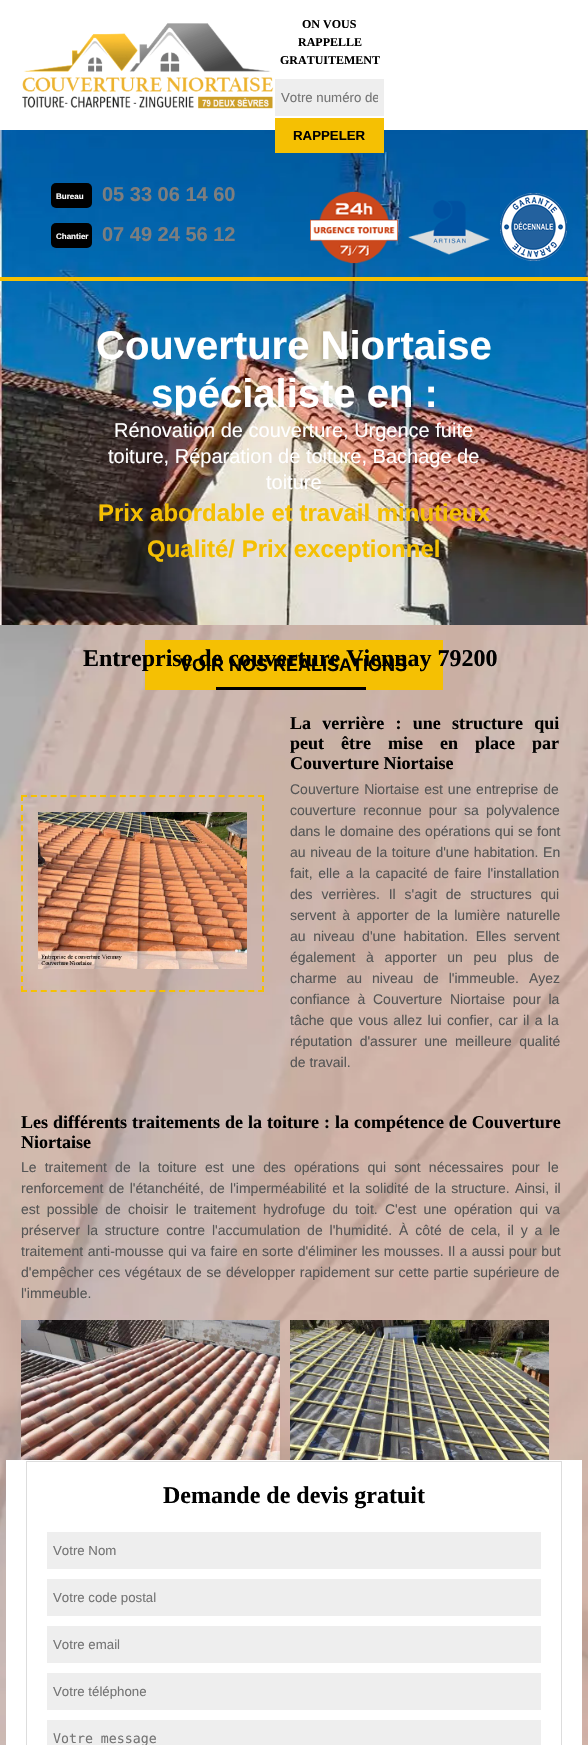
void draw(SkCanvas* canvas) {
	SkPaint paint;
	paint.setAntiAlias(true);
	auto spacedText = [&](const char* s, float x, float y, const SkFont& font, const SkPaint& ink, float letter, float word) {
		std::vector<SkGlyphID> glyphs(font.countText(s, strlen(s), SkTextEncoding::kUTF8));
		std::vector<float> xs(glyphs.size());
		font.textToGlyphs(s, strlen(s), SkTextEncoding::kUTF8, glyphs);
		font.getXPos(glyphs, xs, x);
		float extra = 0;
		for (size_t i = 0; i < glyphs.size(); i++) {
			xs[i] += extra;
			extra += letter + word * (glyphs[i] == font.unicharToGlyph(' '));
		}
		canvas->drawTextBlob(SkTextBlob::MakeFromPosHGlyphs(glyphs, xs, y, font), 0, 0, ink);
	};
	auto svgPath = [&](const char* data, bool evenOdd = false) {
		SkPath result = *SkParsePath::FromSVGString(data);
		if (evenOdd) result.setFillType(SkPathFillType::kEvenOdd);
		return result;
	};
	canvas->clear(0xffffffff);
	canvas->drawImageRect(SkImages::DeferredFromEncodedData(SkData::MakeFromFileName("img1.png")), SkRect::MakeXYWH(0, 130, 588, 1615), SkSamplingOptions());
	canvas->drawImageRect(SkImages::DeferredFromEncodedData(SkData::MakeFromFileName("img2.png")), SkRect::MakeXYWH(22, 23, 252, 86), SkSamplingOptions());
	SkFont f1(fontMgr->matchFamilyStyle("Liberation Serif", SkFontStyle::Bold()), 12);
	f1.setSubpixel(true);
	paint.setColor(0xff000000);
	canvas->drawString("ON VOUS", 302, 28, f1, paint);
	canvas->drawString("RAPPELLE", 298, 46, f1, paint);
	canvas->drawString("GRATUITEMENT", 280, 64, f1, paint);
	paint.setColor(0xffeeeeee);
	canvas->drawRect(SkRect::MakeXYWH(275, 79, 109, 37), paint);
	canvas->save();
	canvas->clipRect(SkRect::MakeXYWH(281, 90, 97, 15));
	SkFont f2(fontMgr->matchFamilyStyle("Liberation Sans", SkFontStyle::Normal()), 13.25);
	f2.setSubpixel(true);
	paint.setColor(0xff757575);
	canvas->drawString("Votre numéro de", 281, 102, f2, paint);
	canvas->restore();
	canvas->drawImageRect(SkImages::DeferredFromEncodedData(SkData::MakeFromFileName("img6.png")), SkRect::MakeXYWH(0, 130, 588, 495), SkSamplingOptions());
	paint.setColor(0xfff5c003);
	canvas->drawRect(SkRect::MakeXYWH(275, 118, 109, 35), paint);
	SkFont f3(fontMgr->matchFamilyStyle("Liberation Sans", SkFontStyle::Bold()), 13.25);
	f3.setSubpixel(true);
	paint.setColor(0xff000000);
	canvas->drawString("RAPPELER", 293, 140, f3, paint);
	canvas->drawRoundRect(SkRect::MakeXYWH(51, 183, 41, 25), 5, 5, paint);
	SkFont f4(fontMgr->matchFamilyStyle("Liberation Sans", SkFontStyle::Bold()), 8);
	f4.setSubpixel(true);
	paint.setColor(0xffffffff);
	canvas->drawString("Bureau", 56, 199, f4, paint);
	SkFont f5(fontMgr->matchFamilyStyle("Liberation Sans", SkFontStyle::Bold()), 20);
	f5.setSubpixel(true);
	paint.setColor(0xff7e7e7e);
	canvas->drawString("05 33 06 14 60", 102, 201, f5, paint);
	paint.setColor(0xff000000);
	canvas->drawRoundRect(SkRect::MakeXYWH(51, 223, 41, 25), 5, 5, paint);
	paint.setColor(0xffffffff);
	canvas->drawString("Chantier", 56, 239, f4, paint);
	paint.setColor(0xff7e7e7e);
	canvas->drawString("07 49 24 56 12", 102, 241, f5, paint);
	canvas->drawImageRect(SkImages::DeferredFromEncodedData(SkData::MakeFromFileName("img3.png")), SkRect::MakeXYWH(310, 191, 88, 73), SkSamplingOptions());
	canvas->drawImageRect(SkImages::DeferredFromEncodedData(SkData::MakeFromFileName("img4.png")), SkRect::MakeXYWH(408, 200, 82, 55), SkSamplingOptions());
	canvas->drawImageRect(SkImages::DeferredFromEncodedData(SkData::MakeFromFileName("img5.png")), SkRect::MakeXYWH(500, 193, 67, 68), SkSamplingOptions());
	paint.setColor(0xfff5c003);
	canvas->drawRect(SkRect::MakeXYWH(0, 277, 588, 4), paint);
	SkFont f6(fontMgr->matchFamilyStyle("Liberation Sans", SkFontStyle::Bold()), 40);
	f6.setSubpixel(true);
	paint.setColor(0xffffffff);
	canvas->drawString("Couverture Niortaise", 96, 359, f6, paint);
	canvas->drawString("spécialiste en :", 151, 407, f6, paint);
	SkFont f7(fontMgr->matchFamilyStyle("Liberation Sans", SkFontStyle::Normal()), 20);
	f7.setSubpixel(true);
	canvas->drawString("Rénovation de couverture, Urgence fuite", 114, 437, f7, paint);
	canvas->drawString("toiture, Réparation de toiture, Bachage de", 108, 463, f7, paint);
	canvas->drawString("toiture", 266, 489, f7, paint);
	SkFont f8(fontMgr->matchFamilyStyle("Liberation Sans", SkFontStyle::Bold()), 24);
	f8.setSubpixel(true);
	paint.setColor(0xfff5c003);
	canvas->drawString("Prix abordable et travail minutieux", 98, 521, f8, paint);
	canvas->drawString("Qualité/ Prix exceptionnel", 147, 557, f8, paint);
	canvas->drawRect(SkRect::MakeXYWH(145, 640, 298, 50), paint);
	SkFont f9(fontMgr->matchFamilyStyle("Liberation Sans", SkFontStyle::Bold()), 18);
	f9.setSubpixel(true);
	paint.setColor(0xff000000);
	canvas->drawString("VOIR NOS RÉALISATIONS", 180, 671, f9, paint);
	SkFont f10(fontMgr->matchFamilyStyle("Liberation Serif", SkFontStyle::Bold()), 24);
	f10.setSubpixel(true);
	canvas->drawString("Entreprise de couverture Viennay 79200", 83, 666, f10, paint);
	canvas->drawRect(SkRect::MakeXYWH(216, 687, 150, 3), paint);
	paint.setStroke(true);
	paint.setStrokeWidth(2);
	paint.setColor(0xfff5c003);
	paint.setPathEffect(SkDashPathEffect::Make({{6, 3.88f}}, 0));
	canvas->drawPath(svgPath("M21 796H264"), paint);
	paint.setPathEffect(nullptr);
	paint.setPathEffect(SkDashPathEffect::Make({{6, 4.05f}}, 0));
	canvas->drawPath(svgPath("M263 795V992"), paint);
	paint.setPathEffect(nullptr);
	paint.setPathEffect(SkDashPathEffect::Make({{6, 3.88f}}, 0));
	canvas->drawPath(svgPath("M21 991H264"), paint);
	paint.setPathEffect(nullptr);
	paint.setPathEffect(SkDashPathEffect::Make({{6, 4.05f}}, 0));
	canvas->drawPath(svgPath("M22 795V992"), paint);
	paint.setPathEffect(nullptr);
	canvas->drawImageRect(SkImages::DeferredFromEncodedData(SkData::MakeFromFileName("img7.png")), SkRect::MakeXYWH(38, 812, 209, 157), SkSamplingOptions());
	SkFont f11(fontMgr->matchFamilyStyle("Liberation Serif", SkFontStyle::Bold()), 18);
	f11.setSubpixel(true);
	paint.setStroke(false);
	paint.setColor(0xff000000);
	spacedText("La verrière : une structure qui", 290, 729, f11, paint, 0, 6.75);
	spacedText("peut être mise en place par", 290, 749, f11, paint, 0, 12.5);
	canvas->drawString("Couverture Niortaise", 290, 769, f11, paint);
	SkFont f12(fontMgr->matchFamilyStyle("Liberation Sans", SkFontStyle::Normal()), 14);
	f12.setSubpixel(true);
	paint.setColor(0xff555555);
	spacedText("Couverture Niortaise est une entreprise de", 290, 794, f12, paint, 0, 1);
	spacedText("couverture reconnue pour sa polyvalence", 290, 815, f12, paint, 0, 3.25);
	spacedText("dans le domaine des opérations qui se font", 290, 836, f12, paint, 0, 0.5);
	spacedText("au niveau de la toiture d'une habitation. En", 290, 857, f12, paint, 0, 0.75);
	spacedText("fait, elle a la capacité de faire l'installation", 290, 878, f12, paint, 0, 1.75);
	spacedText("des verrières. Il s'agit de structures qui", 290, 899, f12, paint, 0, 5);
	spacedText("servent à apporter de la lumière naturelle", 290, 920, f12, paint, 0, 2.5);
	spacedText("au niveau d'une habitation. Elles servent", 290, 941, f12, paint, 0, 3.75);
	spacedText("également à apporter un peu plus de", 290, 962, f12, paint, 0, 6.75);
	spacedText("charme au niveau de l'immeuble. Ayez", 290, 983, f12, paint, 0, 6);
	spacedText("confiance à Couverture Niortaise pour la", 290, 1004, f12, paint, 0, 3.75);
	spacedText("tâche que vous allez lui confier, car il a la", 290, 1025, f12, paint, 0, 1.5);
	spacedText("réputation d'assurer une meilleure qualité", 290, 1046, f12, paint, 0, 3.5);
	canvas->drawString("de travail.", 290, 1067, f12, paint);
	paint.setColor(0xff000000);
	spacedText("Les différents traitements de la toiture : la compétence de Couverture", 21, 1128, f11, paint, 0, 0.5);
	canvas->drawString("Niortaise", 21, 1148, f11, paint);
	paint.setColor(0xff555555);
	spacedText("Le traitement de la toiture est une des opérations qui sont nécessaires pour le", 21, 1172, f12, paint, 0, 4.25);
	spacedText("renforcement de l'étanchéité, de l'imperméabilité et la solidité de la structure. Ainsi, il", 21, 1193, f12, paint, 0, 1.4);
	spacedText("est possible de choisir le traitement hydrofuge du toit. C'est une opération qui va", 21, 1214, f12, paint, 0, 3.25);
	spacedText("préserver la structure contre l'accumulation de l'humidité. À côté de cela, il y a le", 21, 1235, f12, paint, 0, 3);
	spacedText("traitement anti-mousse qui va faire en sorte d'éliminer les mousses. Il a aussi pour but", 21, 1256, f12, paint, 0, 0.5);
	spacedText("d'empêcher ces végétaux de se développer rapidement sur cette partie supérieure de", 21, 1277, f12, paint, 0, 0.75);
	canvas->drawString("l'immeuble.", 21, 1298, f12, paint);
	canvas->drawImageRect(SkImages::DeferredFromEncodedData(SkData::MakeFromFileName("img8.png")), SkRect::MakeXYWH(21, 1320, 259, 140), SkSamplingOptions());
	canvas->drawImageRect(SkImages::DeferredFromEncodedData(SkData::MakeFromFileName("img9.png")), SkRect::MakeXYWH(290, 1320, 259, 140), SkSamplingOptions());
	paint.setColor(0xffffffff);
	canvas->drawRect(SkRect::MakeXYWH(6, 1460, 576, 285), paint);
	paint.setColor(0xffdddddd);
	canvas->drawRect(SkRect::MakeXYWH(26, 1461, 536, 1), paint);
	canvas->drawRect(SkRect::MakeXYWH(561, 1461, 1, 284), paint);
	canvas->drawRect(SkRect::MakeXYWH(26, 1461, 1, 284), paint);
	paint.setColor(0xff000000);
	canvas->drawString("Demande de devis gratuit", 163, 1503, f10, paint);
	paint.setColor(0xffeeeeee);
	canvas->drawRect(SkRect::MakeXYWH(47, 1532, 494, 37), paint);
	paint.setColor(0xff757575);
	canvas->drawString("Votre Nom", 53, 1555, f2, paint);
	paint.setColor(0xffeeeeee);
	canvas->drawRect(SkRect::MakeXYWH(47, 1579, 494, 37), paint);
	paint.setColor(0xff757575);
	canvas->drawString("Votre code postal", 53, 1602, f2, paint);
	paint.setColor(0xffeeeeee);
	canvas->drawRect(SkRect::MakeXYWH(47, 1626, 494, 37), paint);
	paint.setColor(0xff757575);
	canvas->drawString("Votre email", 53, 1649, f2, paint);
	paint.setColor(0xffeeeeee);
	canvas->drawRect(SkRect::MakeXYWH(47, 1673, 494, 37), paint);
	paint.setColor(0xff757575);
	canvas->drawString("Votre téléphone", 53, 1696, f2, paint);
	paint.setColor(0xffeeeeee);
	canvas->drawRect(SkRect::MakeXYWH(47, 1720, 494, 25), paint);
	SkFont f13(fontMgr->matchFamilyStyle("DejaVu Sans Mono", SkFontStyle::Normal()), 13.25);
	f13.setSubpixel(true);
	paint.setColor(0xff757575);
	canvas->drawString("Votre message", 53, 1743, f13, paint);
}
